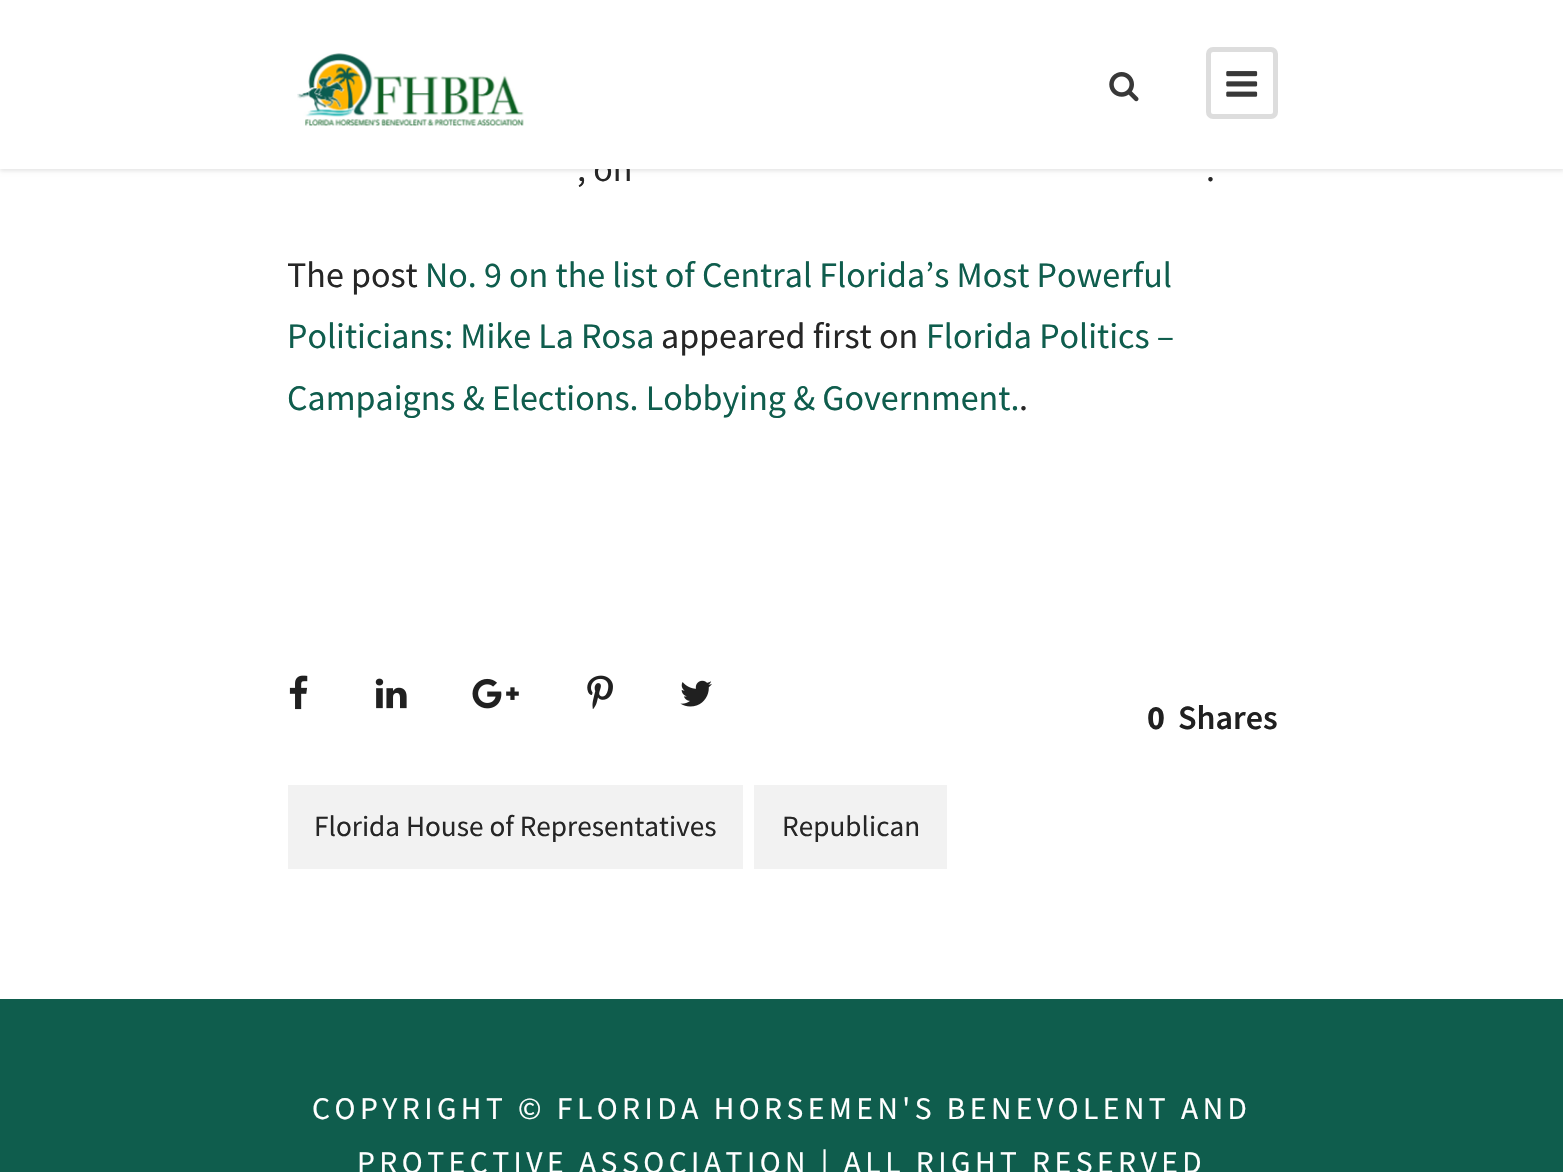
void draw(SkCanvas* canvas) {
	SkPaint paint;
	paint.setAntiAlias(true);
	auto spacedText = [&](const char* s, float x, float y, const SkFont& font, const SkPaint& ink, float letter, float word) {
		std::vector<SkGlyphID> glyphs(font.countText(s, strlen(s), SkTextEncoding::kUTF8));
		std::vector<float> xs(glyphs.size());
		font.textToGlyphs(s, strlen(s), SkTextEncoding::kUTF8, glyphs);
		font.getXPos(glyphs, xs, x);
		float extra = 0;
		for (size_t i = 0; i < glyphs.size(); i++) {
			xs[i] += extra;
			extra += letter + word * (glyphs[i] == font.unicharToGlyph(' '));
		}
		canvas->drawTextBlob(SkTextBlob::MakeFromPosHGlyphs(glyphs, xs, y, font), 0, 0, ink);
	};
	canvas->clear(0xffffffff);
	paint.setColor(0x1a000000);
	paint.setMaskFilter(SkMaskFilter::MakeBlur(kNormal_SkBlurStyle, 2));
	canvas->drawRect(SkRect::MakeXYWH(0, 2, 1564, 169), paint);
	paint.setMaskFilter(nullptr);
	SkFont f1(fontMgr->matchFamilyStyle("Source Sans Pro", SkFontStyle::Normal()), 36);
	f1.setSubpixel(true);
	paint.setColor(0xff262626);
	canvas->drawString(", on", 577, 181, f1, paint);
	paint.setColor(0xffffffff);
	canvas->drawRect(SkRect::MakeXYWH(0, 0, 1563, 169), paint);
	canvas->drawImageRect(SkImages::DeferredFromEncodedData(SkData::MakeFromFileName("img1.png")), SkRect::MakeXYWH(297, 53, 227, 73), SkSamplingOptions());
	canvas->drawImageRect(SkImages::DeferredFromEncodedData(SkData::MakeFromFileName("img2.png")), SkRect::MakeXYWH(1109, 72, 30, 30), SkSamplingOptions());
	paint.setStroke(true);
	paint.setStrokeWidth(5);
	paint.setColor(0xffdddddd);
	canvas->drawRoundRect(SkRect::MakeXYWH(1208.5, 49.5, 67, 67), 4.5, 4.5, paint);
	canvas->drawImageRect(SkImages::DeferredFromEncodedData(SkData::MakeFromFileName("img3.png")), SkRect::MakeXYWH(1226, 71, 32, 26), SkSamplingOptions());
	paint.setStroke(false);
	paint.setColor(0xff262626);
	canvas->drawString(".", 1206, 181, f1, paint);
	canvas->drawString("The post", 287, 287, f1, paint);
	paint.setColor(0xff0f5d4d);
	canvas->drawString("No. 9 on the list of Central Florida’s Most Powerful", 425, 287, f1, paint);
	canvas->drawString("Politicians: Mike La Rosa", 287, 348, f1, paint);
	paint.setColor(0xff262626);
	canvas->drawString("appeared first on", 661, 348, f1, paint);
	paint.setColor(0xff0f5d4d);
	canvas->drawString("Florida Politics –", 926, 348, f1, paint);
	canvas->drawString("Campaigns & Elections. Lobbying & Government.", 287, 410, f1, paint);
	paint.setColor(0xff262626);
	canvas->drawString(".", 1019, 410, f1, paint);
	canvas->drawImageRect(SkImages::DeferredFromEncodedData(SkData::MakeFromFileName("img4.png")), SkRect::MakeXYWH(289, 675, 19, 35), SkSamplingOptions());
	canvas->drawImageRect(SkImages::DeferredFromEncodedData(SkData::MakeFromFileName("img5.png")), SkRect::MakeXYWH(375, 678, 32, 31), SkSamplingOptions());
	canvas->drawImageRect(SkImages::DeferredFromEncodedData(SkData::MakeFromFileName("img6.png")), SkRect::MakeXYWH(472, 678, 47, 31), SkSamplingOptions());
	canvas->drawImageRect(SkImages::DeferredFromEncodedData(SkData::MakeFromFileName("img7.png")), SkRect::MakeXYWH(587, 675, 26, 34), SkSamplingOptions());
	canvas->drawImageRect(SkImages::DeferredFromEncodedData(SkData::MakeFromFileName("img8.png")), SkRect::MakeXYWH(680, 680, 32, 27), SkSamplingOptions());
	SkFont f2(fontMgr->matchFamilyStyle("Source Sans Pro", SkFontStyle::Bold()), 34);
	f2.setSubpixel(true);
	paint.setColor(0xff202020);
	canvas->drawString("0", 1147, 729, f2, paint);
	SkFont f3(fontMgr->matchFamilyStyle("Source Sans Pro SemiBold", SkFontStyle(600, SkFontStyle::kNormal_Width, SkFontStyle::kUpright_Slant)), 34);
	f3.setSubpixel(true);
	canvas->drawString("Shares", 1178, 729, f3, paint);
	paint.setColor(0xfff2f2f2);
	canvas->drawRect(SkRect::MakeXYWH(288, 785, 455, 84), paint);
	SkFont f4(fontMgr->matchFamilyStyle("Source Sans Pro", SkFontStyle::Normal()), 29.25);
	f4.setSubpixel(true);
	paint.setColor(0xff262626);
	canvas->drawString("Florida House of Representatives", 314, 836, f4, paint);
	paint.setColor(0xfff2f2f2);
	canvas->drawRect(SkRect::MakeXYWH(754, 785, 193, 84), paint);
	paint.setColor(0xff262626);
	canvas->drawString("Republican", 782, 836, f4, paint);
	paint.setColor(0xff0f5d4d);
	canvas->drawRect(SkRect::MakeXYWH(0, 999, 1563, 173), paint);
	SkFont f5(fontMgr->matchFamilyStyle("Source Sans Pro", SkFontStyle::Normal()), 31.5);
	f5.setSubpixel(true);
	paint.setColor(0xffffffff);
	spacedText("COPYRIGHT © FLORIDA HORSEMEN'S BENEVOLENT AND", 312, 1119, f5, paint, 4.5, 0);
	spacedText("PROTECTIVE ASSOCIATION | ALL RIGHT RESERVED", 357, 1173, f5, paint, 4.5, 0);
}
